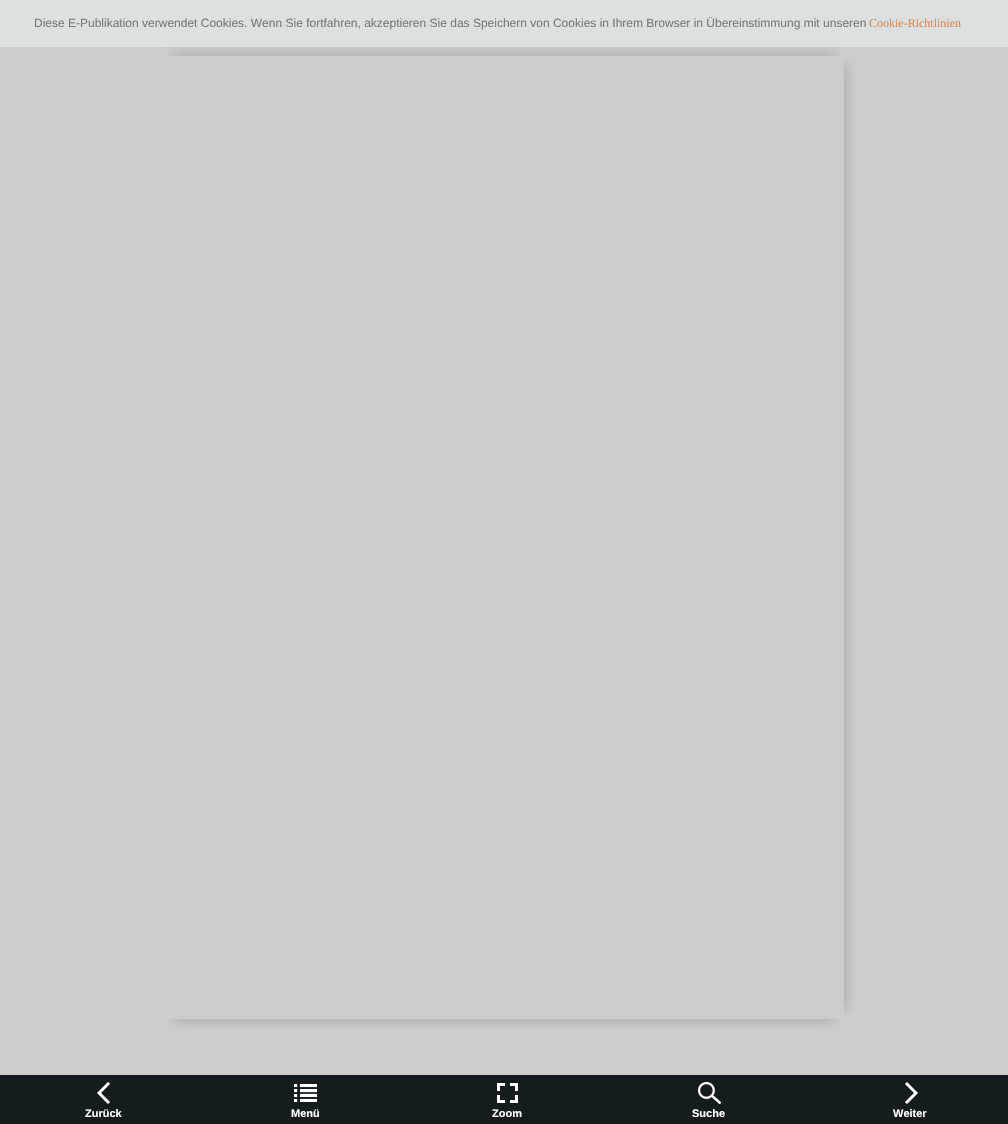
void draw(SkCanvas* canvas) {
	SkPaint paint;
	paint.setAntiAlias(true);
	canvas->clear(0xffcccccc);
	canvas->save();
	canvas->clipRect(SkRect::MakeXYWH(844, 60, 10, 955));
	paint.setColor(0x33000000);
	paint.setMaskFilter(SkMaskFilter::MakeBlur(kNormal_SkBlurStyle, 7.5));
	canvas->drawRect(SkRect::MakeXYWH(183, 66, 661, 943), paint);
	paint.setMaskFilter(nullptr);
	canvas->restore();
	canvas->save();
	canvas->clipRect(SkRect::MakeXYWH(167, 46, 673, 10));
	paint.setMaskFilter(SkMaskFilter::MakeBlur(kNormal_SkBlurStyle, 7.5));
	canvas->drawRect(SkRect::MakeXYWH(173, 56, 661, 943), paint);
	paint.setMaskFilter(nullptr);
	canvas->restore();
	paint.setColor(0x99e8ecef);
	canvas->drawRect(SkRect::MakeXYWH(0, 0, 1008, 47), paint);
	SkFont f1(fontMgr->matchFamilyStyle("Liberation Sans", SkFontStyle::Normal()), 12);
	f1.setSubpixel(true);
	paint.setColor(0xff787878);
	canvas->drawString("Diese E-Publikation verwendet Cookies. Wenn Sie fortfahren, akzeptieren Sie das Speichern von Cookies in Ihrem Browser in Übereinstimmung mit unseren", 34, 27, f1, paint);
	SkFont f2(fontMgr->matchFamilyStyle("Liberation Serif", SkFontStyle::Normal()), 12);
	f2.setSubpixel(true);
	paint.setColor(0xffdb8a53);
	canvas->drawString("Cookie-Richtlinien", 869, 27, f2, paint);
	canvas->save();
	canvas->clipRect(SkRect::MakeXYWH(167, 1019, 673, 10));
	paint.setColor(0x33000000);
	paint.setMaskFilter(SkMaskFilter::MakeBlur(kNormal_SkBlurStyle, 7.5));
	canvas->drawRect(SkRect::MakeXYWH(173, 76, 661, 943), paint);
	paint.setMaskFilter(nullptr);
	canvas->restore();
	paint.setColor(0xff151c20);
	canvas->drawRect(SkRect::MakeXYWH(0, 1075, 1008, 49), paint);
	canvas->drawImageRect(SkImages::DeferredFromEncodedData(SkData::MakeFromFileName("img1.png")), SkRect::MakeXYWH(97, 1082, 13, 22), SkSamplingOptions());
	SkFont f3(fontMgr->matchFamilyStyle("Liberation Sans", SkFontStyle::Bold()), 11);
	f3.setSubpixel(true);
	paint.setColor(0xffffffff);
	canvas->drawString("Zurück", 85, 1117, f3, paint);
	canvas->drawImageRect(SkImages::DeferredFromEncodedData(SkData::MakeFromFileName("img2.png")), SkRect::MakeXYWH(294, 1084, 23, 18), SkSamplingOptions());
	canvas->drawString("Menü", 291, 1117, f3, paint);
	canvas->drawImageRect(SkImages::DeferredFromEncodedData(SkData::MakeFromFileName("img3.png")), SkRect::MakeXYWH(497, 1083, 21, 20), SkSamplingOptions());
	canvas->drawString("Zoom", 492, 1117, f3, paint);
	canvas->drawImageRect(SkImages::DeferredFromEncodedData(SkData::MakeFromFileName("img4.png")), SkRect::MakeXYWH(698, 1082, 23, 22), SkSamplingOptions());
	canvas->drawString("Suche", 692, 1117, f3, paint);
	canvas->drawImageRect(SkImages::DeferredFromEncodedData(SkData::MakeFromFileName("img5.png")), SkRect::MakeXYWH(905, 1082, 13, 22), SkSamplingOptions());
	canvas->drawString("Weiter", 893, 1117, f3, paint);
}
